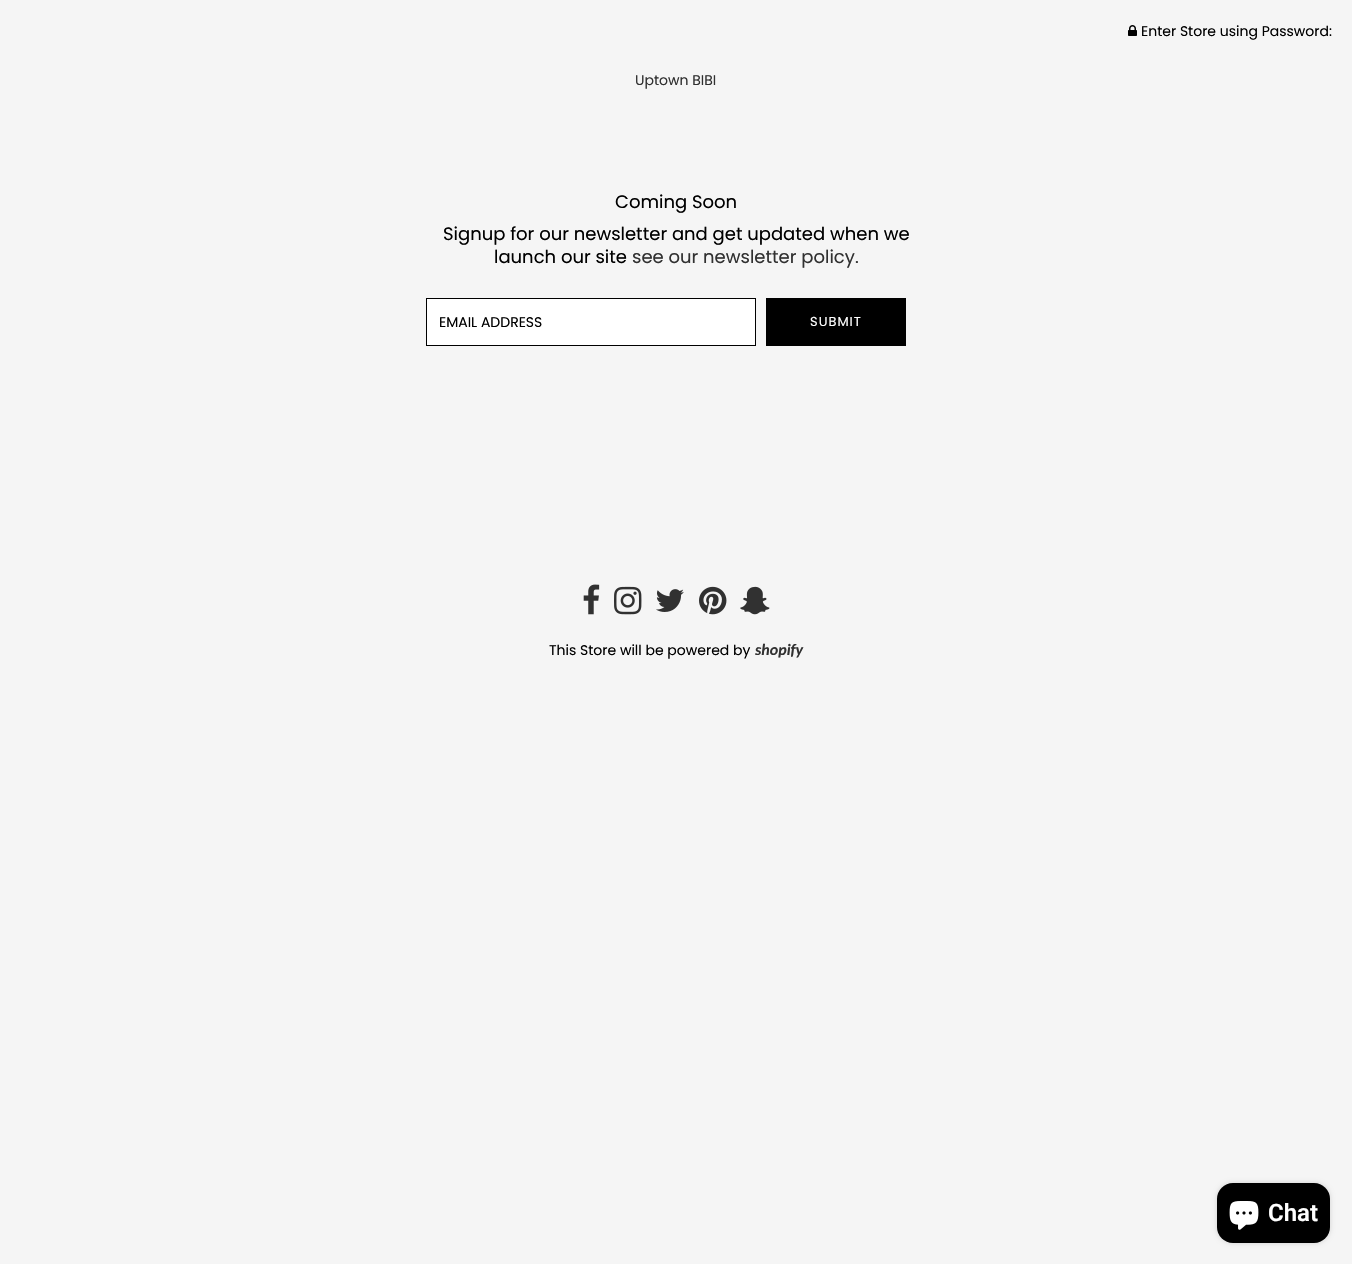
void draw(SkCanvas* canvas) {
	SkPaint paint;
	paint.setAntiAlias(true);
	auto spacedText = [&](const char* s, float x, float y, const SkFont& font, const SkPaint& ink, float letter, float word) {
		std::vector<SkGlyphID> glyphs(font.countText(s, strlen(s), SkTextEncoding::kUTF8));
		std::vector<float> xs(glyphs.size());
		font.textToGlyphs(s, strlen(s), SkTextEncoding::kUTF8, glyphs);
		font.getXPos(glyphs, xs, x);
		float extra = 0;
		for (size_t i = 0; i < glyphs.size(); i++) {
			xs[i] += extra;
			extra += letter + word * (glyphs[i] == font.unicharToGlyph(' '));
		}
		canvas->drawTextBlob(SkTextBlob::MakeFromPosHGlyphs(glyphs, xs, y, font), 0, 0, ink);
	};
	canvas->clear(0xfff5f5f5);
	canvas->drawImageRect(SkImages::DeferredFromEncodedData(SkData::MakeFromFileName("img1.png")), SkRect::MakeXYWH(1128, 25, 9, 11), SkSamplingOptions());
	SkFont f1(fontMgr->matchFamilyStyle("Poppins", SkFontStyle::Normal()), 14);
	f1.setSubpixel(true);
	paint.setColor(0xff000000);
	canvas->drawString("Enter Store using Password:", 1141, 36, f1, paint);
	paint.setColor(0xff313131);
	canvas->drawString("Uptown BIBI", 635, 85, f1, paint);
	SkFont f2(fontMgr->matchFamilyStyle("Poppins", SkFontStyle::Normal()), 18);
	f2.setSubpixel(true);
	paint.setColor(0xff000000);
	canvas->drawString("Coming Soon", 615, 208, f2, paint);
	canvas->drawString("Signup for our newsletter and get updated when we", 443, 240, f2, paint);
	canvas->drawString("launch our site", 494, 263, f2, paint);
	paint.setColor(0xff313131);
	canvas->drawString("see our newsletter policy.", 632, 263, f2, paint);
	paint.setColor(0xffffffff);
	canvas->drawRect(SkRect::MakeXYWH(426.5, 298.5, 329, 47), paint);
	paint.setStroke(true);
	paint.setStrokeWidth(1);
	paint.setColor(0xff000000);
	canvas->drawRect(SkRect::MakeXYWH(426.5, 298.5, 329, 47), paint);
	paint.setStroke(false);
	canvas->drawString("EMAIL ADDRESS", 439, 327, f1, paint);
	canvas->drawRect(SkRect::MakeXYWH(766, 298, 140, 48), paint);
	SkFont f3(fontMgr->matchFamilyStyle("Poppins", SkFontStyle::Normal()), 13);
	f3.setSubpixel(true);
	paint.setColor(0xffffffff);
	spacedText("SUBMIT", 810, 326, f3, paint, 1, 0);
	canvas->drawImageRect(SkImages::DeferredFromEncodedData(SkData::MakeFromFileName("img2.png")), SkRect::MakeXYWH(583, 584, 17, 31), SkSamplingOptions());
	canvas->drawImageRect(SkImages::DeferredFromEncodedData(SkData::MakeFromFileName("img3.png")), SkRect::MakeXYWH(614, 586, 28, 29), SkSamplingOptions());
	canvas->drawImageRect(SkImages::DeferredFromEncodedData(SkData::MakeFromFileName("img4.png")), SkRect::MakeXYWH(656, 589, 28, 23), SkSamplingOptions());
	canvas->drawImageRect(SkImages::DeferredFromEncodedData(SkData::MakeFromFileName("img5.png")), SkRect::MakeXYWH(699, 586, 28, 29), SkSamplingOptions());
	canvas->drawImageRect(SkImages::DeferredFromEncodedData(SkData::MakeFromFileName("img6.png")), SkRect::MakeXYWH(740, 586, 30, 29), SkSamplingOptions());
	paint.setColor(0xff000000);
	canvas->drawString("This Store will be powered by", 549, 655, f1, paint);
	SkFont f4(fontMgr->matchFamilyStyle("Carlito", SkFontStyle::BoldItalic()), 16);
	f4.setSubpixel(true);
	paint.setColor(0xff313131);
	canvas->drawString("shopify", 755, 655, f4, paint);
	paint.setColor(0x26000000);
	paint.setMaskFilter(SkMaskFilter::MakeBlur(kNormal_SkBlurStyle, 2.5));
	canvas->drawRoundRect(SkRect::MakeXYWH(1217, 1183, 113, 60), 16, 16, paint);
	paint.setMaskFilter(nullptr);
	paint.setColor(0xff000000);
	canvas->drawRoundRect(SkRect::MakeXYWH(1217, 1183, 113, 60), 16, 16, paint);
	canvas->drawImageRect(SkImages::DeferredFromEncodedData(SkData::MakeFromFileName("img7.png")), SkRect::MakeXYWH(1229, 1201, 30, 29), SkSamplingOptions());
	SkFont f5(fontMgr->matchFamilyStyle("Roboto", SkFontStyle(600, SkFontStyle::kNormal_Width, SkFontStyle::kUpright_Slant)), 24);
	f5.setSubpixel(true);
	paint.setColor(0xffffffff);
	canvas->drawString("Chat", 1268, 1221, f5, paint);
}
